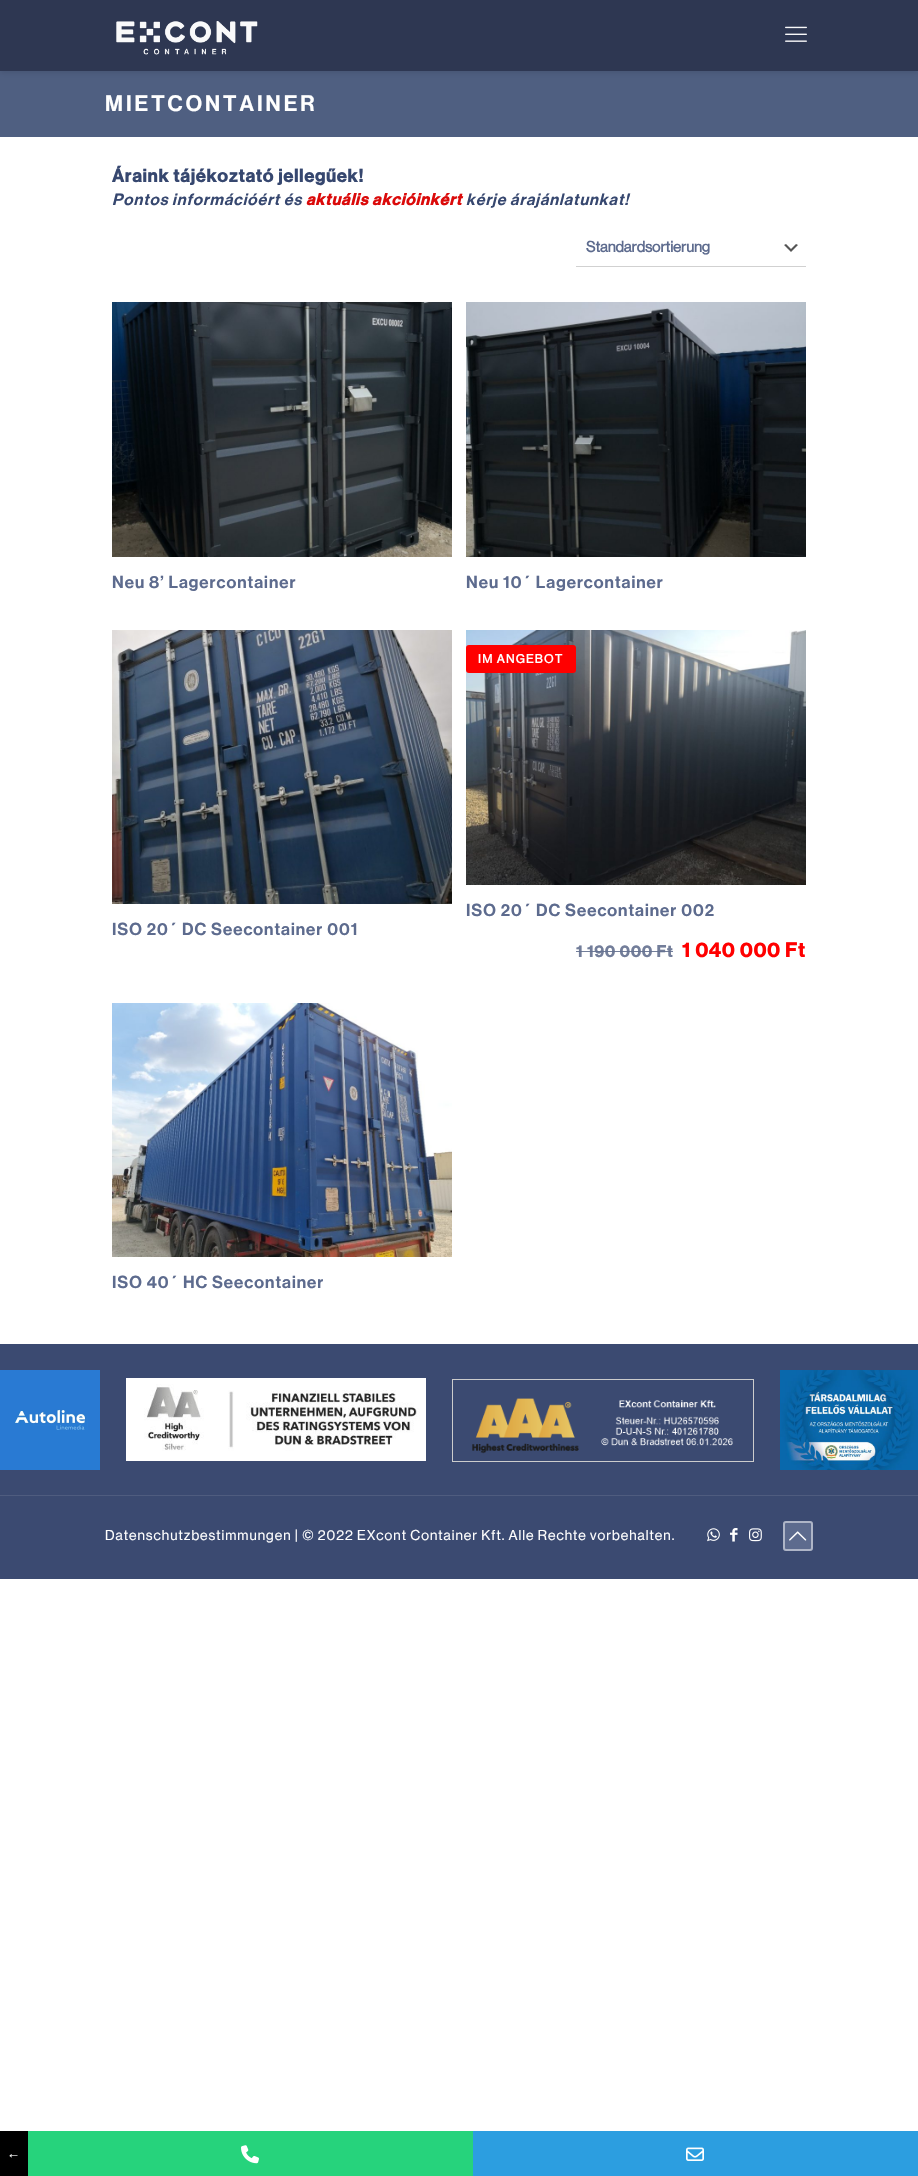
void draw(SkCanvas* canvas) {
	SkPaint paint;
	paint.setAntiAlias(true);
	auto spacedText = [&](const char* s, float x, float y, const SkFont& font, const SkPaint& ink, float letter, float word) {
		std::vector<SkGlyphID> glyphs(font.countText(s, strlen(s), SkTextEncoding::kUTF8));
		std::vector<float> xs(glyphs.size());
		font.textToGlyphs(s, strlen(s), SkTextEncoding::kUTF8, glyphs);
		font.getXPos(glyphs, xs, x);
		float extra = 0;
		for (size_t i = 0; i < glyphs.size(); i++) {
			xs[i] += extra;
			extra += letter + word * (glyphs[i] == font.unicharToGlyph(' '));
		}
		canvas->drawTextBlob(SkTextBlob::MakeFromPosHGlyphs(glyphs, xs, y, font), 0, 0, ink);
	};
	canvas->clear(0xffffffff);
	paint.setColor(0xff4f5f81);
	canvas->drawRect(SkRect::MakeXYWH(0, 71, 918, 66), paint);
	paint.setColor(0x1a020304);
	paint.setMaskFilter(SkMaskFilter::MakeBlur(kNormal_SkBlurStyle, 2.5));
	canvas->drawRect(SkRect::MakeXYWH(0, 2, 918, 71), paint);
	paint.setMaskFilter(nullptr);
	paint.setColor(0xff2e3752);
	canvas->drawRect(SkRect::MakeXYWH(0, 0, 918, 71), paint);
	canvas->drawImageRect(SkImages::DeferredFromEncodedData(SkData::MakeFromFileName("img1.png")), SkRect::MakeXYWH(116, 21, 142, 34), SkSamplingOptions());
	canvas->drawImageRect(SkImages::DeferredFromEncodedData(SkData::MakeFromFileName("img2.png")), SkRect::MakeXYWH(785, 26, 22, 16), SkSamplingOptions());
	SkFont f1(fontMgr->matchFamilyStyle("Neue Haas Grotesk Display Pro", SkFontStyle(500, SkFontStyle::kNormal_Width, SkFontStyle::kUpright_Slant)), 22);
	f1.setSubpixel(true);
	paint.setColor(0xffffffff);
	spacedText("MIETCONTAINER", 105, 111, f1, paint, 3, 0);
	SkFont f2(fontMgr->matchFamilyStyle("Neue Haas Grotesk Display Pro", SkFontStyle::Bold()), 18);
	f2.setSubpixel(true);
	paint.setColor(0xff36476f);
	spacedText("Áraink tájékoztató jellegűek!", 112, 182, f2, paint, 1, 0);
	SkFont f3(fontMgr->matchFamilyStyle("Neue Haas Grotesk Display Pro", SkFontStyle(500, SkFontStyle::kNormal_Width, SkFontStyle::kItalic_Slant)), 16);
	f3.setSubpixel(true);
	spacedText("Pontos információért és", 112, 205, f3, paint, 1, 0);
	SkFont f4(fontMgr->matchFamilyStyle("Neue Haas Grotesk Display Pro", SkFontStyle::BoldItalic()), 16);
	f4.setSubpixel(true);
	paint.setColor(0xffdb0a0a);
	spacedText("aktuális akcióinkért", 306, 205, f4, paint, 1, 0);
	paint.setColor(0xff36476f);
	spacedText("kérje árajánlatunkat!", 466, 205, f3, paint, 1, 0);
	canvas->drawImageRect(SkImages::DeferredFromEncodedData(SkData::MakeFromFileName("img3.png")), SkRect::MakeXYWH(784, 244, 14, 8), SkSamplingOptions());
	paint.setColor(0xffd1d1d1);
	canvas->drawRect(SkRect::MakeXYWH(576, 266, 230, 1), paint);
	SkFont f5(fontMgr->matchFamilyStyle("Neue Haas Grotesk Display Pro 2", SkFontStyle::Bold()), 15);
	f5.setSubpixel(true);
	paint.setColor(0xff5d6b8e);
	canvas->drawString("Standardsortierung", 586, 252, f5, paint);
	canvas->drawImageRect(SkImages::DeferredFromEncodedData(SkData::MakeFromFileName("img4.png")), SkRect::MakeXYWH(112, 302, 340, 255), SkSamplingOptions());
	SkFont f6(fontMgr->matchFamilyStyle("Neue Haas Grotesk Display Pro", SkFontStyle(500, SkFontStyle::kNormal_Width, SkFontStyle::kUpright_Slant)), 17);
	f6.setSubpixel(true);
	spacedText("Neu 8’ Lagercontainer", 112, 588, f6, paint, 1, 0);
	canvas->drawImageRect(SkImages::DeferredFromEncodedData(SkData::MakeFromFileName("img5.png")), SkRect::MakeXYWH(466, 302, 340, 255), SkSamplingOptions());
	spacedText("Neu 10´ Lagercontainer", 466, 588, f6, paint, 1, 0);
	canvas->drawImageRect(SkImages::DeferredFromEncodedData(SkData::MakeFromFileName("img6.png")), SkRect::MakeXYWH(112, 630, 340, 274), SkSamplingOptions());
	spacedText("ISO 20´ DC Seecontainer 001", 112, 935, f6, paint, 1, 0);
	canvas->drawImageRect(SkImages::DeferredFromEncodedData(SkData::MakeFromFileName("img7.png")), SkRect::MakeXYWH(466, 630, 340, 255), SkSamplingOptions());
	paint.setColor(0xffff0000);
	canvas->drawRoundRect(SkRect::MakeXYWH(466, 645, 110, 28), 3, 3, paint);
	SkFont f7(fontMgr->matchFamilyStyle("Neue Haas Grotesk Display Pro 2", SkFontStyle::Bold()), 12);
	f7.setSubpixel(true);
	paint.setColor(0xffffffff);
	spacedText("IM ANGEBOT", 478, 663, f7, paint, 1.4, 0);
	paint.setColor(0xff5d6b8e);
	spacedText("ISO 20´ DC Seecontainer 002", 466, 916, f6, paint, 1, 0);
	SkFont f8(fontMgr->matchFamilyStyle("Neue Haas Grotesk Display Pro", SkFontStyle::Bold()), 16);
	f8.setSubpixel(true);
	paint.setColor(0xff737e9a);
	spacedText("1 190 000 Ft", 576, 957, f8, paint, 1, 0);
	paint.setColor(0xe663708f);
	canvas->drawRect(SkRect::MakeXYWH(576, 951, 80, 1), paint);
	canvas->drawRect(SkRect::MakeXYWH(656, 951, 17, 1), paint);
	SkFont f9(fontMgr->matchFamilyStyle("Neue Haas Grotesk Display Pro", SkFontStyle::Bold()), 20);
	f9.setSubpixel(true);
	paint.setColor(0xffff0000);
	spacedText("1 040 000 Ft", 682, 957, f9, paint, 1, 0);
	canvas->drawImageRect(SkImages::DeferredFromEncodedData(SkData::MakeFromFileName("img8.png")), SkRect::MakeXYWH(112, 1003, 340, 254), SkSamplingOptions());
	paint.setColor(0xff5d6b8e);
	spacedText("ISO 40´ HC Seecontainer", 112, 1288, f6, paint, 1, 0);
	paint.setColor(0xff3b4a71);
	canvas->drawRect(SkRect::MakeXYWH(0, 1344, 918, 235), paint);
	canvas->drawImageRect(SkImages::DeferredFromEncodedData(SkData::MakeFromFileName("img9.png")), SkRect::MakeXYWH(0, 1370, 100, 100), SkSamplingOptions());
	canvas->drawImageRect(SkImages::DeferredFromEncodedData(SkData::MakeFromFileName("img10.png")), SkRect::MakeXYWH(126, 1378, 300, 83), SkSamplingOptions());
	paint.setStroke(true);
	paint.setStrokeWidth(1);
	paint.setColor(0xffcccccc);
	canvas->drawRect(SkRect::MakeXYWH(452.5, 1379.5, 301, 82), paint);
	canvas->drawImageRect(SkImages::DeferredFromEncodedData(SkData::MakeFromFileName("img11.png")), SkRect::MakeXYWH(472, 1398, 261, 56), SkSamplingOptions());
	canvas->drawImageRect(SkImages::DeferredFromEncodedData(SkData::MakeFromFileName("img12.png")), SkRect::MakeXYWH(780, 1370, 138, 100), SkSamplingOptions());
	paint.setStroke(false);
	paint.setColor(0xff4f5c7f);
	canvas->drawRect(SkRect::MakeXYWH(0, 1495, 918, 1), paint);
	SkFont f10(fontMgr->matchFamilyStyle("Neue Haas Grotesk Display Pro", SkFontStyle::Normal()), 14);
	f10.setSubpixel(true);
	paint.setColor(0xffffffff);
	spacedText("Datenschutzbestimmungen | © 2022 EXcont Container Kft. Alle Rechte vorbehalten.", 105, 1540, f10, paint, 1, 0);
	canvas->drawImageRect(SkImages::DeferredFromEncodedData(SkData::MakeFromFileName("img13.png")), SkRect::MakeXYWH(707, 1528, 13, 14), SkSamplingOptions());
	canvas->drawImageRect(SkImages::DeferredFromEncodedData(SkData::MakeFromFileName("img14.png")), SkRect::MakeXYWH(730, 1528, 8, 14), SkSamplingOptions());
	canvas->drawImageRect(SkImages::DeferredFromEncodedData(SkData::MakeFromFileName("img15.png")), SkRect::MakeXYWH(749, 1528, 13, 14), SkSamplingOptions());
	paint.setColor(0xff5d6b8e);
	canvas->drawRoundRect(SkRect::MakeXYWH(783, 1521, 30, 30), 3, 3, paint);
	paint.setStroke(true);
	paint.setStrokeWidth(2);
	paint.setColor(0x80ffffff);
	canvas->drawRoundRect(SkRect::MakeXYWH(784, 1522, 28, 28), 2, 2, paint);
	canvas->drawImageRect(SkImages::DeferredFromEncodedData(SkData::MakeFromFileName("img16.png")), SkRect::MakeXYWH(789, 1531, 18, 10), SkSamplingOptions());
	paint.setStroke(false);
	paint.setColor(0xff000000);
	canvas->drawRect(SkRect::MakeXYWH(0, 2131, 28, 45), paint);
	SkFont f11(fontMgr->matchFamilyStyle("Liberation Serif", SkFontStyle::Normal()), 13);
	f11.setSubpixel(true);
	paint.setColor(0xffffffff);
	spacedText("←", 7, 2158, f11, paint, 1, 0);
	paint.setColor(0xff26d37c);
	canvas->drawRect(SkRect::MakeXYWH(28, 2131, 445, 45), paint);
	canvas->drawImageRect(SkImages::DeferredFromEncodedData(SkData::MakeFromFileName("img17.png")), SkRect::MakeXYWH(241, 2145, 18, 19), SkSamplingOptions());
	paint.setColor(0xff2c9ee0);
	canvas->drawRect(SkRect::MakeXYWH(473, 2131, 445, 45), paint);
	canvas->drawImageRect(SkImages::DeferredFromEncodedData(SkData::MakeFromFileName("img18.png")), SkRect::MakeXYWH(686, 2147, 18, 14), SkSamplingOptions());
}
